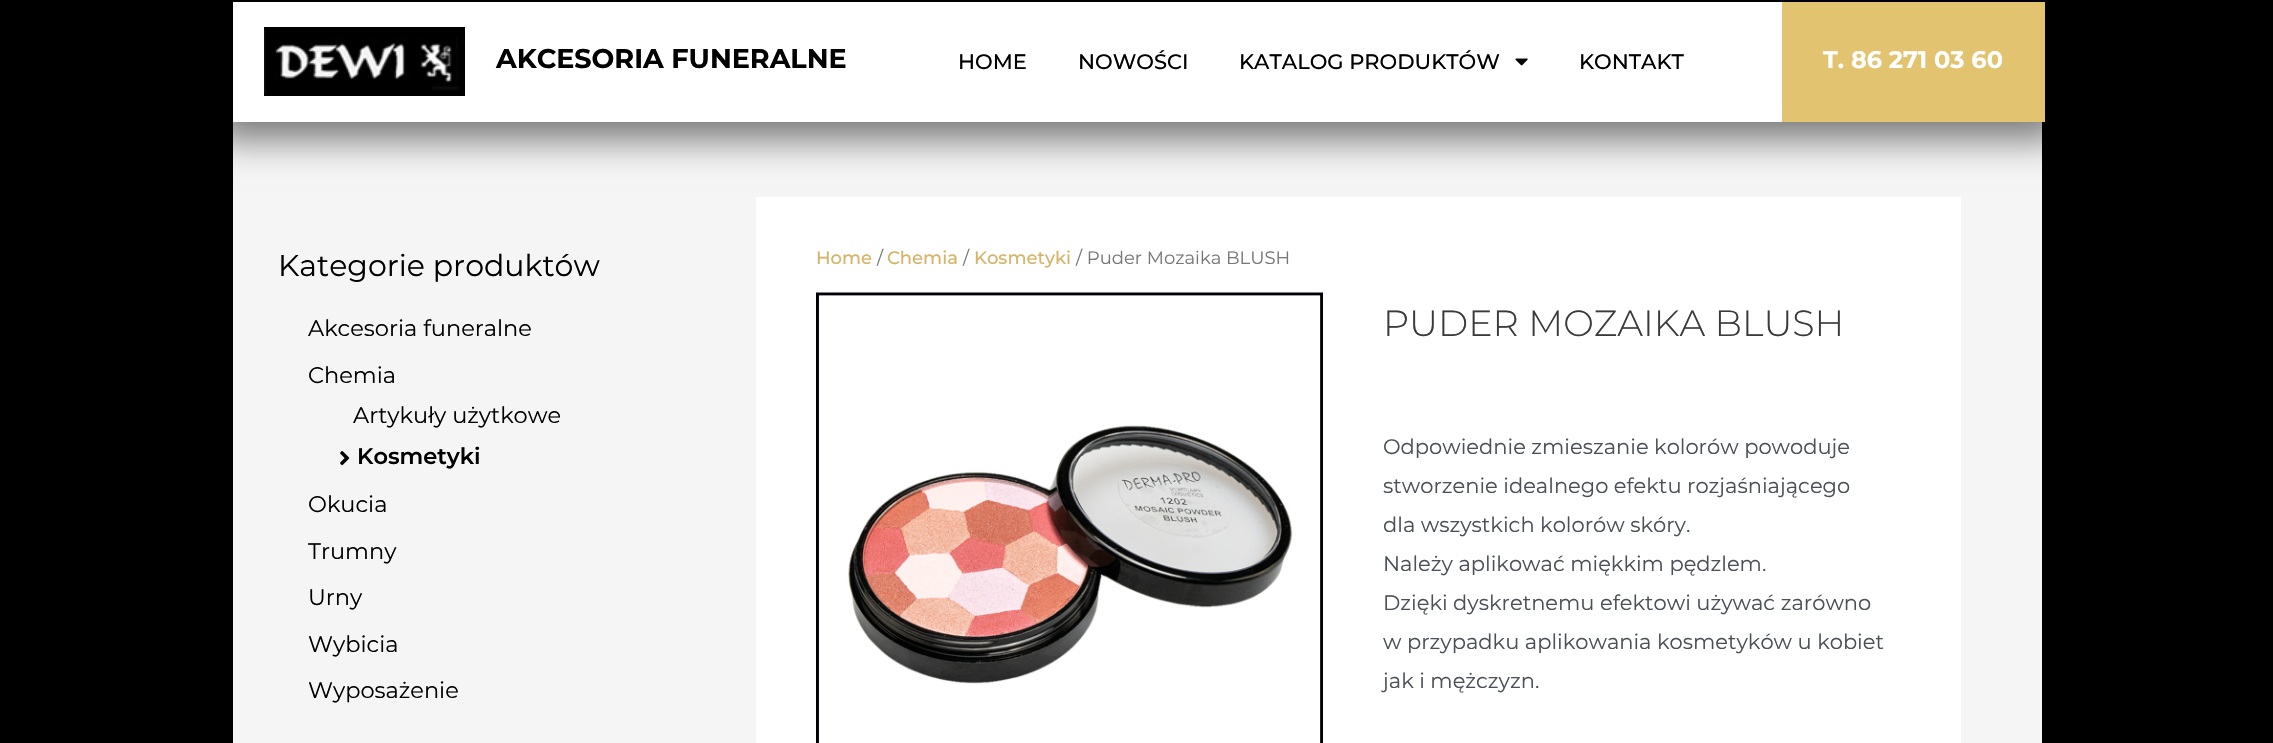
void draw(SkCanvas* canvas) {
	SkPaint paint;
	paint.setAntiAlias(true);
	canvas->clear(0xff000000);
	paint.setColor(0xfff5f5f5);
	canvas->drawRect(SkRect::MakeXYWH(233, 122, 1809, 621), paint);
	paint.setColor(0x80000000);
	paint.setMaskFilter(SkMaskFilter::MakeBlur(kNormal_SkBlurStyle, 17));
	canvas->drawRect(SkRect::MakeXYWH(215, -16, 1845, 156), paint);
	paint.setMaskFilter(nullptr);
	paint.setColor(0xffffffff);
	canvas->drawRect(SkRect::MakeXYWH(233, 2, 1549, 120), paint);
	canvas->drawImageRect(SkImages::DeferredFromEncodedData(SkData::MakeFromFileName("img1.png")), SkRect::MakeXYWH(264, 27, 201, 69), SkSamplingOptions());
	SkFont f1(fontMgr->matchFamilyStyle("Montserrat", SkFontStyle::Bold()), 27);
	f1.setSubpixel(true);
	paint.setColor(0xff000000);
	canvas->drawString("AKCESORIA FUNERALNE", 496, 68, f1, paint);
	SkFont f2(fontMgr->matchFamilyStyle("Montserrat", SkFontStyle(500, SkFontStyle::kNormal_Width, SkFontStyle::kUpright_Slant)), 21);
	f2.setSubpixel(true);
	canvas->drawString("HOME", 958, 69, f2, paint);
	canvas->drawString("NOWOŚCI", 1078, 69, f2, paint);
	canvas->drawString("KATALOG PRODUKTÓW", 1239, 69, f2, paint);
	canvas->drawImageRect(SkImages::DeferredFromEncodedData(SkData::MakeFromFileName("img2.png")), SkRect::MakeXYWH(1515, 58, 13, 8), SkSamplingOptions());
	canvas->drawString("KONTAKT", 1579, 69, f2, paint);
	paint.setColor(0xffe2c370);
	canvas->drawRect(SkRect::MakeXYWH(1782, 2, 263, 120), paint);
	SkFont f3(fontMgr->matchFamilyStyle("Montserrat", SkFontStyle::Bold()), 24);
	f3.setSubpixel(true);
	paint.setColor(0xffffffff);
	canvas->drawString("T. 86 271 03 60", 1823, 68, f3, paint);
	SkFont f4(fontMgr->matchFamilyStyle("Montserrat", SkFontStyle::Normal()), 30);
	f4.setSubpixel(true);
	paint.setColor(0xff000000);
	canvas->drawString("Kategorie produktów", 278, 276, f4, paint);
	SkFont f5(fontMgr->matchFamilyStyle("Montserrat", SkFontStyle::Normal()), 22.5);
	f5.setSubpixel(true);
	canvas->drawString("Akcesoria funeralne", 308, 336, f5, paint);
	canvas->drawString("Chemia", 308, 383, f5, paint);
	canvas->drawString("Artykuły użytkowe", 353, 423, f5, paint);
	canvas->drawImageRect(SkImages::DeferredFromEncodedData(SkData::MakeFromFileName("img3.png")), SkRect::MakeXYWH(340, 451, 10, 15), SkSamplingOptions());
	SkFont f6(fontMgr->matchFamilyStyle("Montserrat", SkFontStyle(600, SkFontStyle::kNormal_Width, SkFontStyle::kUpright_Slant)), 22.5);
	f6.setSubpixel(true);
	canvas->drawString("Kosmetyki", 357, 464, f6, paint);
	canvas->drawString("Okucia", 308, 512, f5, paint);
	canvas->drawString("Trumny", 308, 559, f5, paint);
	canvas->drawString("Urny", 308, 605, f5, paint);
	canvas->drawString("Wybicia", 308, 652, f5, paint);
	canvas->drawString("Wyposażenie", 308, 698, f5, paint);
	paint.setColor(0xffffffff);
	canvas->drawRect(SkRect::MakeXYWH(756, 197, 1205, 546), paint);
	SkFont f7(fontMgr->matchFamilyStyle("Montserrat", SkFontStyle(500, SkFontStyle::kNormal_Width, SkFontStyle::kUpright_Slant)), 18);
	f7.setSubpixel(true);
	paint.setColor(0xffd7b46a);
	canvas->drawString("Home", 816, 264, f7, paint);
	SkFont f8(fontMgr->matchFamilyStyle("Montserrat", SkFontStyle::Normal()), 18);
	f8.setSubpixel(true);
	paint.setColor(0xff777777);
	canvas->drawString("/", 877, 264, f8, paint);
	paint.setColor(0xffd7b46a);
	canvas->drawString("Chemia", 887, 264, f7, paint);
	paint.setColor(0xff777777);
	canvas->drawString("/", 963, 264, f8, paint);
	paint.setColor(0xffd7b46a);
	canvas->drawString("Kosmetyki", 974, 264, f7, paint);
	paint.setColor(0xff777777);
	canvas->drawString("/ Puder Mozaika BLUSH", 1076, 264, f8, paint);
	canvas->drawImageRect(SkImages::DeferredFromEncodedData(SkData::MakeFromFileName("img4.png")), SkRect::MakeXYWH(816, 292, 507, 451), SkSamplingOptions());
	SkFont f9(fontMgr->matchFamilyStyle("Montserrat", SkFontStyle(300, SkFontStyle::kNormal_Width, SkFontStyle::kUpright_Slant)), 36.5);
	f9.setSubpixel(true);
	paint.setColor(0xff3a3a3a);
	canvas->drawString("PUDER MOZAIKA BLUSH", 1383, 336, f9, paint);
	SkFont f10(fontMgr->matchFamilyStyle("Montserrat", SkFontStyle::Normal()), 21);
	f10.setSubpixel(true);
	paint.setColor(0xff4b4f58);
	canvas->drawString("Odpowiednie zmieszanie kolorów powoduje", 1383, 454, f10, paint);
	canvas->drawString("stworzenie idealnego efektu rozjaśniającego", 1383, 493, f10, paint);
	canvas->drawString("dla wszystkich kolorów skóry.", 1383, 532, f10, paint);
	canvas->drawString("Należy aplikować miękkim pędzlem.", 1383, 571, f10, paint);
	canvas->drawString("Dzięki dyskretnemu efektowi używać zarówno", 1383, 610, f10, paint);
	canvas->drawString("w przypadku aplikowania kosmetyków u kobiet", 1383, 649, f10, paint);
	canvas->drawString("jak i mężczyzn.", 1383, 688, f10, paint);
}
